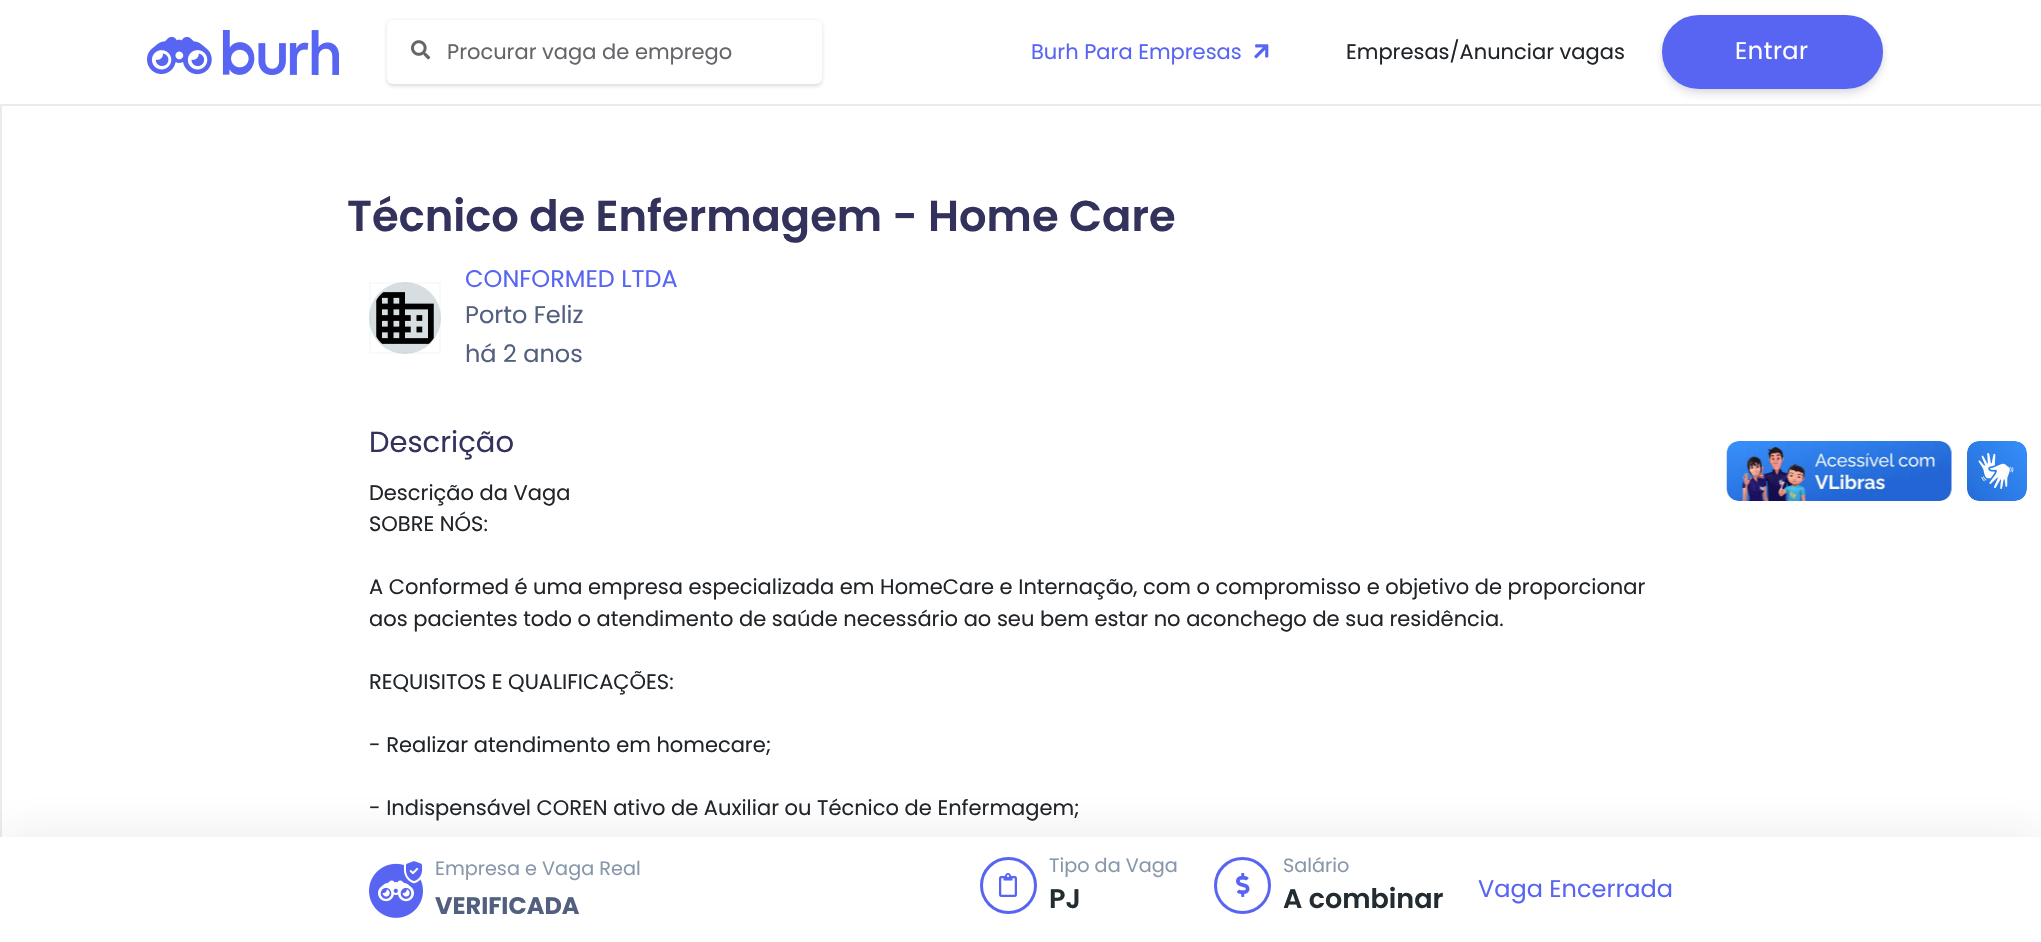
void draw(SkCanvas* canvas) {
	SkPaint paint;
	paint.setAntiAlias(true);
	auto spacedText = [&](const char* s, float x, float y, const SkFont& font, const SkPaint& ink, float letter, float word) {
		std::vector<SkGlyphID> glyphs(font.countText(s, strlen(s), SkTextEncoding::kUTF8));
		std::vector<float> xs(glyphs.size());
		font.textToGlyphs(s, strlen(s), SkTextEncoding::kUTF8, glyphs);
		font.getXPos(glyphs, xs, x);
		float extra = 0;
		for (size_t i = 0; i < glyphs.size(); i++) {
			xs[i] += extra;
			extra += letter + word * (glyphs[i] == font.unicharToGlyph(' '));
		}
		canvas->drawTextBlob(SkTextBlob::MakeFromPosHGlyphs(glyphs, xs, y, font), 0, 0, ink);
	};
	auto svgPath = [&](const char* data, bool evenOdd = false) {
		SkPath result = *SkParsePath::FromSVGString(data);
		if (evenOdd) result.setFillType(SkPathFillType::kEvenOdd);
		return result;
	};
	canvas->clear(0xffffffff);
	paint.setColor(0xffe9ecef);
	canvas->drawRect(SkRect::MakeXYWH(0, 104, 2041, 2), paint);
	canvas->drawImageRect(SkImages::DeferredFromEncodedData(SkData::MakeFromFileName("img1.png")), SkRect::MakeXYWH(147, 30, 192, 45), SkSamplingOptions());
	paint.setColor(0xfffafafa);
	canvas->drawPath(svgPath("M387 78V80C387 83 390 86 393 86H816C819 86 822 83 822 80V78C822 81 819 84 816 84H393C390 84 387 81 387 78Z"), paint);
	paint.setColor(0x2632325d);
	paint.setMaskFilter(SkMaskFilter::MakeBlur(kNormal_SkBlurStyle, 2));
	canvas->drawRoundRect(SkRect::MakeXYWH(387, 21, 435, 65), 6, 6, paint);
	paint.setMaskFilter(nullptr);
	paint.setColor(0xffffffff);
	canvas->drawRoundRect(SkRect::MakeXYWH(387, 20, 435, 64), 6, 6, paint);
	canvas->drawImageRect(SkImages::DeferredFromEncodedData(SkData::MakeFromFileName("img2.png")), SkRect::MakeXYWH(411, 40, 20, 20), SkSamplingOptions());
	SkFont f1(fontMgr->matchFamilyStyle("Poppins", SkFontStyle::Normal()), 21);
	f1.setSubpixel(true);
	paint.setColor(0xff646669);
	canvas->drawString("Procurar vaga de emprego", 447, 59, f1, paint);
	paint.setColor(0xff5865f2);
	canvas->drawString("Burh Para Empresas", 1031, 59, f1, paint);
	canvas->drawImageRect(SkImages::DeferredFromEncodedData(SkData::MakeFromFileName("img3.png")), SkRect::MakeXYWH(1254, 44, 15, 15), SkSamplingOptions());
	paint.setColor(0xff212529);
	canvas->drawString("Empresas/Anunciar vagas", 1346, 59, f1, paint);
	paint.setColor(0x14000000);
	paint.setMaskFilter(SkMaskFilter::MakeBlur(kNormal_SkBlurStyle, 2));
	canvas->drawRoundRect(SkRect::MakeXYWH(1662, 17, 221, 73), 36.5, 36.5, paint);
	paint.setMaskFilter(nullptr);
	paint.setColor(0x1c32325d);
	paint.setMaskFilter(SkMaskFilter::MakeBlur(kNormal_SkBlurStyle, 4.5));
	canvas->drawRoundRect(SkRect::MakeXYWH(1662, 21, 221, 74), 37, 37, paint);
	paint.setMaskFilter(nullptr);
	paint.setColor(0xff5865f2);
	canvas->drawRoundRect(SkRect::MakeXYWH(1663, 16, 219, 72), 36, 36, paint);
	paint.setStroke(true);
	paint.setStrokeWidth(2);
	canvas->drawRoundRect(SkRect::MakeXYWH(1663, 16, 219, 72), 36, 36, paint);
	SkFont f2(fontMgr->matchFamilyStyle("Poppins", SkFontStyle::Normal()), 24);
	f2.setSubpixel(true);
	paint.setStroke(false);
	paint.setColor(0xffffffff);
	spacedText("Entrar", 1735, 59, f2, paint, 0.5, 0);
	paint.setColor(0xffebebeb);
	canvas->drawRect(SkRect::MakeXYWH(0, 106, 2, 731), paint);
	SkFont f3(fontMgr->matchFamilyStyle("Poppins", SkFontStyle(600, SkFontStyle::kNormal_Width, SkFontStyle::kUpright_Slant)), 43.25);
	f3.setSubpixel(true);
	paint.setColor(0xff32325d);
	canvas->drawString("Técnico de Enfermagem - Home Care", 347, 231, f3, paint);
	paint.setColor(0xffd7dee1);
	canvas->drawCircle(405, 318, 36, paint);
	paint.setStroke(true);
	paint.setColor(0x0d7e96a1);
	canvas->drawRect(SkRect::MakeXYWH(370, 283, 70, 70), paint);
	canvas->drawImageRect(SkImages::DeferredFromEncodedData(SkData::MakeFromFileName("img4.png")), SkRect::MakeXYWH(376, 292, 58, 52), SkSamplingOptions());
	paint.setStroke(false);
	paint.setColor(0xff5865f2);
	canvas->drawString("CONFORMED LTDA", 465, 287, f2, paint);
	paint.setColor(0xff525f7f);
	canvas->drawString("Porto Feliz", 465, 323, f2, paint);
	canvas->drawString("há 2 anos", 465, 362, f2, paint);
	SkFont f4(fontMgr->matchFamilyStyle("Poppins", SkFontStyle::Normal()), 29);
	f4.setSubpixel(true);
	paint.setColor(0xff32325d);
	canvas->drawString("Descrição", 369, 452, f4, paint);
	paint.setColor(0xff212529);
	canvas->drawString("Descrição da Vaga", 369, 500, f1, paint);
	canvas->drawString("SOBRE NÓS:", 369, 531, f1, paint);
	canvas->drawString("A Conformed é uma empresa especializada em HomeCare e Internação, com o compromisso e objetivo de proporcionar", 369, 594, f1, paint);
	canvas->drawString("aos pacientes todo o atendimento de saúde necessário ao seu bem estar no aconchego de sua residência.", 369, 626, f1, paint);
	canvas->drawString("REQUISITOS E QUALIFICAÇÕES:", 369, 689, f1, paint);
	canvas->drawString("- Realizar atendimento em homecare;", 369, 752, f1, paint);
	canvas->drawString("- Indispensável COREN ativo de Auxiliar ou Técnico de Enfermagem;", 369, 815, f1, paint);
	paint.setColor(0x1a232c30);
	paint.setMaskFilter(SkMaskFilter::MakeBlur(kNormal_SkBlurStyle, 24));
	canvas->drawRect(SkRect::MakeXYWH(0, 837, 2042, 105), paint);
	paint.setMaskFilter(nullptr);
	paint.setColor(0xffffffff);
	canvas->drawRect(SkRect::MakeXYWH(0, 837, 2041, 105), paint);
	canvas->drawImageRect(SkImages::DeferredFromEncodedData(SkData::MakeFromFileName("img5.png")), SkRect::MakeXYWH(369, 861, 54, 57), SkSamplingOptions());
	SkFont f5(fontMgr->matchFamilyStyle("Poppins", SkFontStyle::Normal()), 19.25);
	f5.setSubpixel(true);
	paint.setColor(0xff8898aa);
	canvas->drawString("Empresa e Vaga Real", 435, 875, f5, paint);
	SkFont f6(fontMgr->matchFamilyStyle("Poppins", SkFontStyle::Bold()), 24);
	f6.setSubpixel(true);
	paint.setColor(0xff525f7f);
	canvas->drawString("VERIFICADA", 435, 914, f6, paint);
	paint.setStroke(true);
	paint.setStrokeWidth(3);
	paint.setColor(0xff5865f2);
	canvas->drawCircle(1008.5, 885.5, 27, paint);
	canvas->drawImageRect(SkImages::DeferredFromEncodedData(SkData::MakeFromFileName("img6.png")), SkRect::MakeXYWH(999, 873, 18, 24), SkSamplingOptions());
	paint.setStroke(false);
	paint.setColor(0xff8898aa);
	canvas->drawString("Tipo da Vaga", 1049, 872, f5, paint);
	SkFont f7(fontMgr->matchFamilyStyle("Poppins", SkFontStyle(600, SkFontStyle::kNormal_Width, SkFontStyle::kUpright_Slant)), 27);
	f7.setSubpixel(true);
	paint.setColor(0xff232c30);
	canvas->drawString("PJ", 1049, 908, f7, paint);
	paint.setStroke(true);
	paint.setColor(0xff5865f2);
	canvas->drawCircle(1242.5, 885.5, 27, paint);
	canvas->drawImageRect(SkImages::DeferredFromEncodedData(SkData::MakeFromFileName("img7.png")), SkRect::MakeXYWH(1236, 873, 14, 24), SkSamplingOptions());
	paint.setStroke(false);
	paint.setColor(0xff8898aa);
	canvas->drawString("Salário", 1283, 872, f5, paint);
	paint.setColor(0xff232c30);
	canvas->drawString("A combinar", 1283, 908, f7, paint);
	paint.setColor(0xff5865f2);
	canvas->drawString("Vaga Encerrada", 1478, 897, f2, paint);
	canvas->drawImageRect(SkImages::DeferredFromEncodedData(SkData::MakeFromFileName("img8.png")), SkRect::MakeXYWH(1726, 441, 226, 60), SkSamplingOptions());
	canvas->drawImageRect(SkImages::DeferredFromEncodedData(SkData::MakeFromFileName("img9.png")), SkRect::MakeXYWH(1967, 441, 60, 60), SkSamplingOptions());
}
